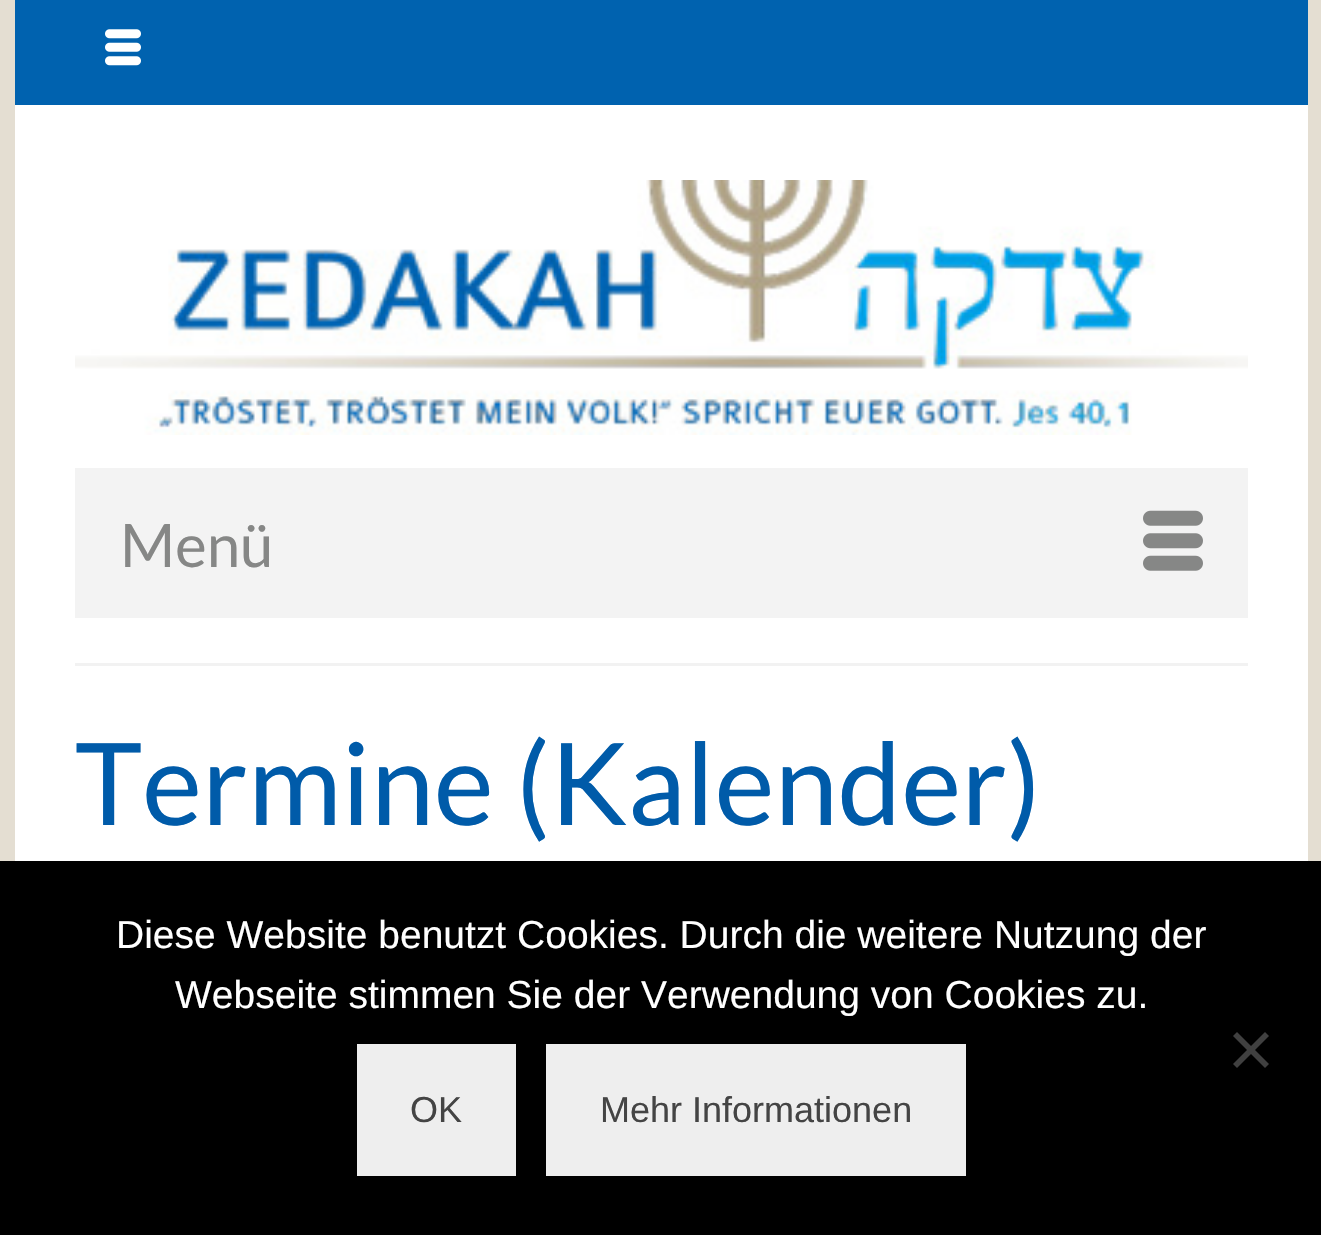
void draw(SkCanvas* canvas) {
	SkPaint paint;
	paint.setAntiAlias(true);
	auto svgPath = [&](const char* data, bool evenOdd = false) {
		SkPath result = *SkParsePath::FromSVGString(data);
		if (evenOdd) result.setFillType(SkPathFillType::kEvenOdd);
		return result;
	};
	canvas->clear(0xffe4ded2);
	paint.setColor(0xffffffff);
	canvas->drawRect(SkRect::MakeXYWH(15, 105, 1293, 756), paint);
	paint.setColor(0xff0062af);
	canvas->drawRect(SkRect::MakeXYWH(15, 0, 1293, 105), paint);
	canvas->drawImageRect(SkImages::DeferredFromEncodedData(SkData::MakeFromFileName("img1.png")), SkRect::MakeXYWH(105, 29, 36, 37), SkSamplingOptions());
	canvas->drawImageRect(SkImages::DeferredFromEncodedData(SkData::MakeFromFileName("img2.png")), SkRect::MakeXYWH(75, 180, 1173, 255), SkSamplingOptions());
	paint.setColor(0xfff3f3f3);
	canvas->drawRect(SkRect::MakeXYWH(75, 468, 1173, 150), paint);
	SkFont f1(fontMgr->matchFamilyStyle("Lato", SkFontStyle::Normal()), 60);
	f1.setSubpixel(true);
	paint.setColor(0xff868786);
	canvas->drawString("Menü", 120, 567, f1, paint);
	canvas->drawImageRect(SkImages::DeferredFromEncodedData(SkData::MakeFromFileName("img3.png")), SkRect::MakeXYWH(1143, 510, 60, 61), SkSamplingOptions());
	paint.setColor(0xfff2f2f2);
	canvas->drawRect(SkRect::MakeXYWH(75, 663, 1173, 3), paint);
	SkFont f2(fontMgr->matchFamilyStyle("Lato", SkFontStyle::Normal()), 114);
	f2.setSubpixel(true);
	paint.setColor(0xff005ba9);
	canvas->drawString("Termine (Kalender)", 75, 825, f2, paint);
	paint.setColor(0xff000000);
	canvas->drawRect(SkRect::MakeXYWH(0, 861, 1321, 374), paint);
	SkFont f3(fontMgr->matchFamilyStyle("Liberation Sans", SkFontStyle::Normal()), 39);
	f3.setSubpixel(true);
	paint.setColor(0xffffffff);
	canvas->drawString("Diese Website benutzt Cookies. Durch die weitere Nutzung der", 116, 948, f3, paint);
	canvas->drawString("Webseite stimmen Sie der Verwendung von Cookies zu.", 175, 1008, f3, paint);
	paint.setColor(0xff404040);
	canvas->drawPath(svgPath("M1265 1032L1269 1036L1237 1068L1233 1064Z"), paint);
	canvas->drawPath(svgPath("M1233 1036L1237 1032L1269 1064L1265 1068Z"), paint);
	paint.setColor(0xffeeeeee);
	canvas->drawRect(SkRect::MakeXYWH(357, 1044, 159, 132), paint);
	SkFont f4(fontMgr->matchFamilyStyle("Liberation Sans", SkFontStyle::Normal()), 36);
	f4.setSubpixel(true);
	paint.setColor(0xff444444);
	canvas->drawString("OK", 410, 1122, f4, paint);
	paint.setColor(0xffeeeeee);
	canvas->drawRect(SkRect::MakeXYWH(546, 1044, 420, 132), paint);
	paint.setColor(0xff444444);
	canvas->drawString("Mehr Informationen", 600, 1122, f4, paint);
}
